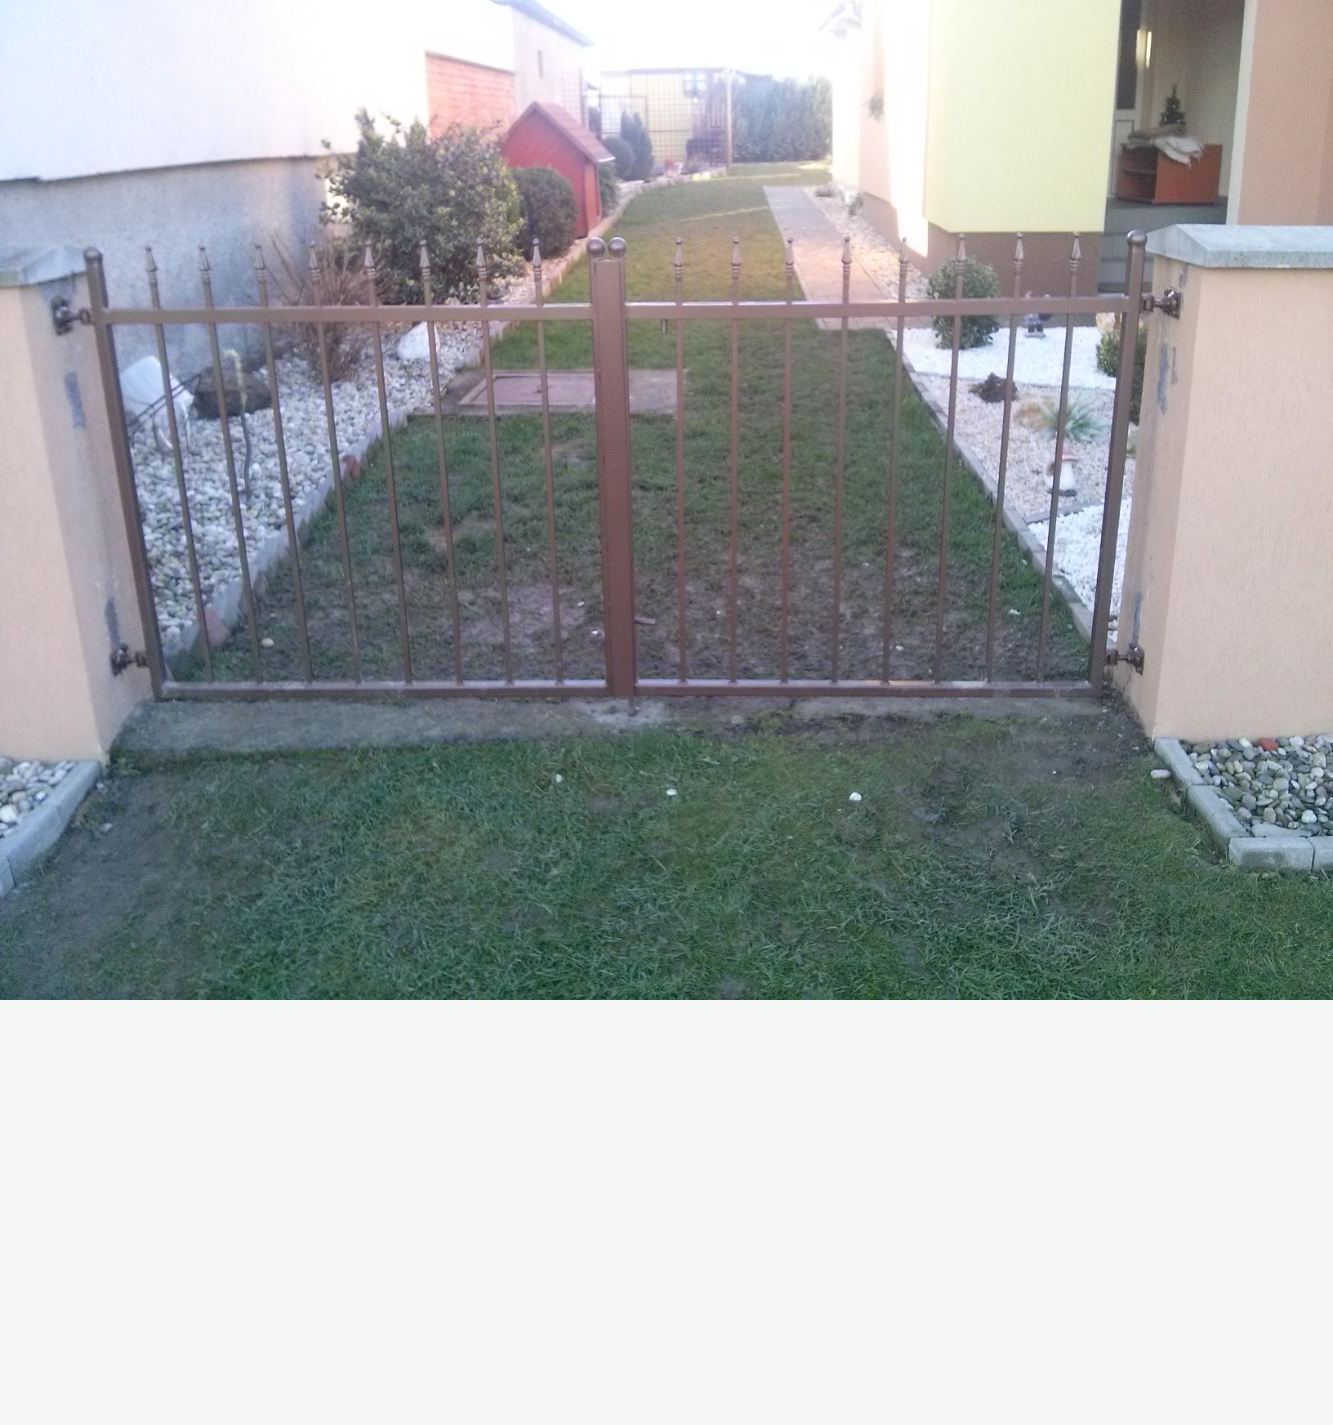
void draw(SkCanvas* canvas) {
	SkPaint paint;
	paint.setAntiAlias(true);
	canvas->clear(0xffffffff);
	canvas->drawImageRect(SkImages::DeferredFromEncodedData(SkData::MakeFromFileName("img1.png")), SkRect::MakeXYWH(0, 1000, 1333, 425), SkSamplingOptions());
	canvas->drawImageRect(SkImages::DeferredFromEncodedData(SkData::MakeFromFileName("img2.png")), SkRect::MakeXYWH(0, 0, 1333, 1000), SkSamplingOptions());
}
